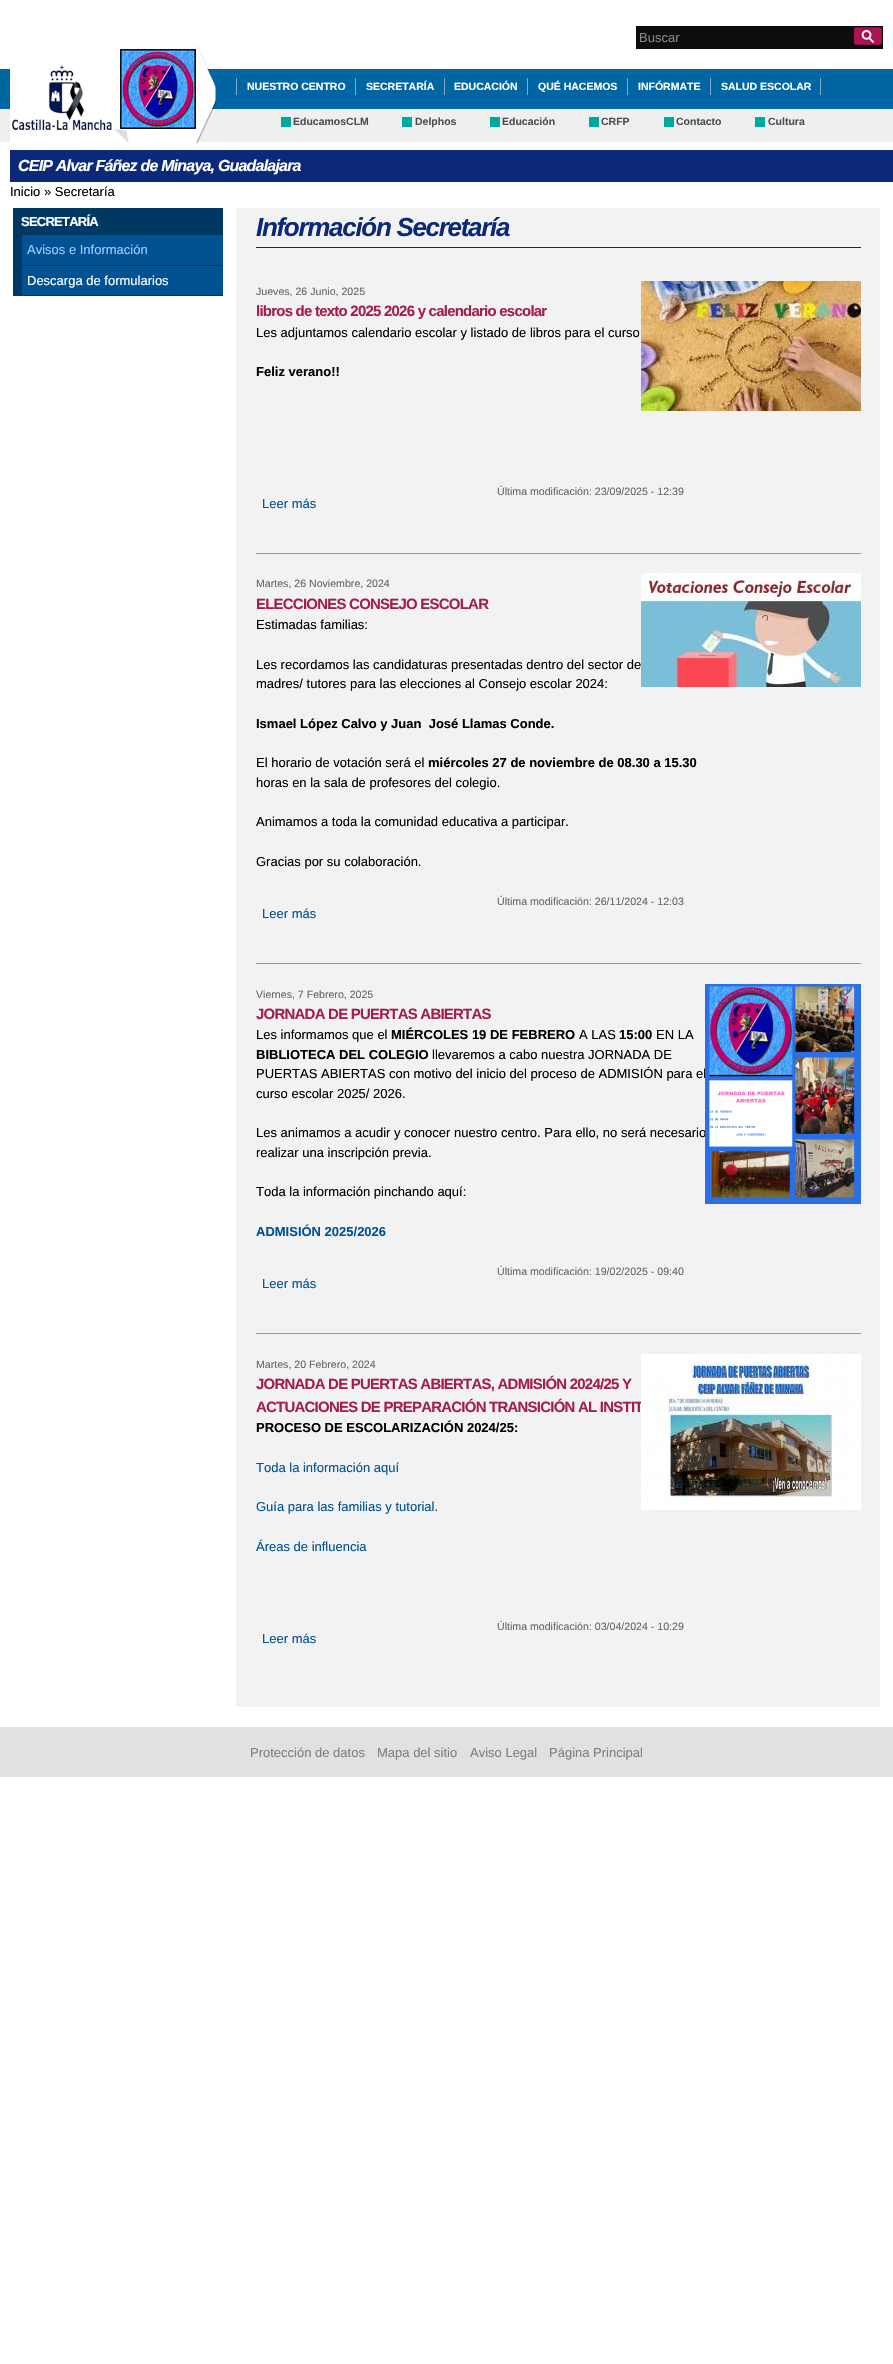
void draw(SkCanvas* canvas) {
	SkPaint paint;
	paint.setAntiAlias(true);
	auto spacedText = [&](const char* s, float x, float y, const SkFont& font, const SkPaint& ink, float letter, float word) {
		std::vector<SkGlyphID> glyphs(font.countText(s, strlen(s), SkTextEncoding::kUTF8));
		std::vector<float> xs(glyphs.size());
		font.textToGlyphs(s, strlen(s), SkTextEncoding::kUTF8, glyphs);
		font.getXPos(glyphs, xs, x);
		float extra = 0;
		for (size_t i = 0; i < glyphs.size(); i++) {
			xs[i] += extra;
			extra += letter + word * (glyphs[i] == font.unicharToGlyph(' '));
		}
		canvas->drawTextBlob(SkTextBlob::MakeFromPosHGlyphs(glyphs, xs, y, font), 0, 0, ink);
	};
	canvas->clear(0xffffffff);
	paint.setColor(0xff0d0d0d);
	canvas->drawRect(SkRect::MakeXYWH(636, 26, 247, 23), paint);
	SkFont f1(fontMgr->matchFamilyStyle("Liberation Sans", SkFontStyle::Normal()), 13);
	f1.setSubpixel(true);
	paint.setColor(0xff888888);
	canvas->drawString("Buscar", 639, 42, f1, paint);
	canvas->drawImageRect(SkImages::DeferredFromEncodedData(SkData::MakeFromFileName("img1.png")), SkRect::MakeXYWH(854, 27, 28, 18), SkSamplingOptions());
	paint.setColor(0xff0065a3);
	canvas->drawRect(SkRect::MakeXYWH(0, 69, 893, 40), paint);
	paint.setColor(0xffefefef);
	canvas->drawRect(SkRect::MakeXYWH(0, 109, 893, 33), paint);
	canvas->drawImageRect(SkImages::DeferredFromEncodedData(SkData::MakeFromFileName("img2.png")), SkRect::MakeXYWH(10, 65, 118, 77), SkSamplingOptions());
	canvas->drawImageRect(SkImages::DeferredFromEncodedData(SkData::MakeFromFileName("img3.png")), SkRect::MakeXYWH(114, 44, 102, 99), SkSamplingOptions());
	SkFont f2(fontMgr->matchFamilyStyle("Liberation Sans", SkFontStyle::Bold()), 10.5);
	f2.setSubpixel(true);
	paint.setColor(0xffffffff);
	canvas->drawString("NUESTRO CENTRO", 247, 90, f2, paint);
	paint.setColor(0xff85a9cc);
	canvas->drawRect(SkRect::MakeXYWH(355, 78, 1, 17), paint);
	canvas->drawRect(SkRect::MakeXYWH(236, 78, 1, 17), paint);
	paint.setColor(0xffffffff);
	canvas->drawString("SECRETARÍA", 366, 90, f2, paint);
	paint.setColor(0xff85a9cc);
	canvas->drawRect(SkRect::MakeXYWH(444, 78, 1, 17), paint);
	paint.setColor(0xffffffff);
	canvas->drawString("EDUCACIÓN", 454, 90, f2, paint);
	paint.setColor(0xff85a9cc);
	canvas->drawRect(SkRect::MakeXYWH(527, 78, 1, 17), paint);
	paint.setColor(0xffffffff);
	canvas->drawString("QUÉ HACEMOS", 538, 90, f2, paint);
	paint.setColor(0xff85a9cc);
	canvas->drawRect(SkRect::MakeXYWH(627, 78, 1, 17), paint);
	paint.setColor(0xffffffff);
	canvas->drawString("INFÓRMATE", 638, 90, f2, paint);
	paint.setColor(0xff85a9cc);
	canvas->drawRect(SkRect::MakeXYWH(710, 78, 1, 17), paint);
	paint.setColor(0xffffffff);
	canvas->drawString("SALUD ESCOLAR", 721, 90, f2, paint);
	paint.setColor(0xff85a9cc);
	canvas->drawRect(SkRect::MakeXYWH(820, 78, 1, 17), paint);
	paint.setColor(0xff00a99d);
	canvas->drawRect(SkRect::MakeXYWH(281, 117, 10, 10), paint);
	paint.setColor(0xff4e4d52);
	canvas->drawString("EducamosCLM", 293, 125, f2, paint);
	paint.setColor(0xff00a99d);
	canvas->drawRect(SkRect::MakeXYWH(402, 117, 10, 10), paint);
	paint.setColor(0xff4e4d52);
	canvas->drawString("Delphos", 415, 125, f2, paint);
	paint.setColor(0xff00a99d);
	canvas->drawRect(SkRect::MakeXYWH(490, 117, 10, 10), paint);
	paint.setColor(0xff4e4d52);
	canvas->drawString("Educación", 502, 125, f2, paint);
	paint.setColor(0xff00a99d);
	canvas->drawRect(SkRect::MakeXYWH(589, 117, 10, 10), paint);
	paint.setColor(0xff4e4d52);
	canvas->drawString("CRFP", 601, 125, f2, paint);
	paint.setColor(0xff00a99d);
	canvas->drawRect(SkRect::MakeXYWH(664, 117, 10, 10), paint);
	paint.setColor(0xff4e4d52);
	canvas->drawString("Contacto", 676, 125, f2, paint);
	paint.setColor(0xff00a99d);
	canvas->drawRect(SkRect::MakeXYWH(755, 117, 10, 10), paint);
	paint.setColor(0xff4e4d52);
	canvas->drawString("Cultura", 768, 125, f2, paint);
	paint.setColor(0xff0c2979);
	canvas->drawRect(SkRect::MakeXYWH(10, 150, 883, 32), paint);
	SkFont f3(fontMgr->matchFamilyStyle("Liberation Sans", SkFontStyle::BoldItalic()), 16);
	f3.setSubpixel(true);
	paint.setColor(0xffffffff);
	spacedText("CEIP Alvar Fáñez de Minaya, Guadalajara", 18, 171, f3, paint, -0.8, 0);
	paint.setColor(0xff000000);
	canvas->drawString("Inicio » Secretaría", 10, 196, f1, paint);
	paint.setColor(0xff003864);
	canvas->drawRect(SkRect::MakeXYWH(13, 208, 210, 88), paint);
	SkFont f4(fontMgr->matchFamilyStyle("Liberation Sans", SkFontStyle::Bold()), 13);
	f4.setSubpixel(true);
	paint.setColor(0xffffffff);
	spacedText("SECRETARÍA", 21, 226, f4, paint, -0.75, 0);
	paint.setColor(0xff005293);
	canvas->drawRect(SkRect::MakeXYWH(22, 235, 201, 30), paint);
	paint.setColor(0xff99ccff);
	canvas->drawString("Avisos e Información", 27, 254, f1, paint);
	paint.setColor(0xff005293);
	canvas->drawRect(SkRect::MakeXYWH(22, 266, 201, 29), paint);
	paint.setColor(0xffffffff);
	canvas->drawString("Descarga de formularios", 27, 285, f1, paint);
	paint.setColor(0xfff2f2f2);
	canvas->drawRect(SkRect::MakeXYWH(236, 208, 644, 1499), paint);
	paint.setColor(0xff0c2979);
	canvas->drawRect(SkRect::MakeXYWH(256, 247, 605, 1), paint);
	SkFont f5(fontMgr->matchFamilyStyle("Liberation Sans", SkFontStyle::BoldItalic()), 26);
	f5.setSubpixel(true);
	spacedText("Información Secretaría", 256, 236, f5, paint, -1.3, 0);
	SkFont f6(fontMgr->matchFamilyStyle("Liberation Sans", SkFontStyle::Normal()), 10.6);
	f6.setSubpixel(true);
	paint.setColor(0xff666666);
	canvas->drawString("Jueves, 26 Junio, 2025", 256, 295, f6, paint);
	SkFont f7(fontMgr->matchFamilyStyle("Liberation Sans", SkFontStyle::Bold()), 14.95);
	f7.setSubpixel(true);
	paint.setColor(0xffa41e4c);
	spacedText("libros de texto 2025 2026 y calendario escolar", 256, 316, f7, paint, -0.75, 0);
	paint.setColor(0xff000000);
	canvas->drawString("Les adjuntamos calendario escolar y listado de libros para el curso", 256, 337, f1, paint);
	canvas->drawString("Feliz verano!!", 256, 376, f4, paint);
	paint.setColor(0xff666666);
	canvas->drawString("Última modificación: 23/09/2025 - 12:39", 497, 495, f6, paint);
	paint.setColor(0xff005196);
	canvas->drawString("Leer más", 262, 508, f1, paint);
	canvas->drawImageRect(SkImages::DeferredFromEncodedData(SkData::MakeFromFileName("img4.png")), SkRect::MakeXYWH(641, 281, 220, 130), SkSamplingOptions());
	paint.setColor(0xff999999);
	canvas->drawRect(SkRect::MakeXYWH(256, 553, 605, 1), paint);
	paint.setColor(0xff666666);
	canvas->drawString("Martes, 26 Noviembre, 2024", 256, 587, f6, paint);
	paint.setColor(0xffa41e4c);
	spacedText("ELECCIONES CONSEJO ESCOLAR", 256, 609, f7, paint, -0.75, 0);
	paint.setColor(0xff000000);
	canvas->drawString("Estimadas familias:", 256, 629, f1, paint);
	canvas->drawString("Les recordamos las candidaturas presentadas dentro del sector de", 256, 669, f1, paint);
	canvas->drawString("madres/ tutores para las elecciones al Consejo escolar 2024:", 256, 688, f1, paint);
	canvas->drawString("Ismael López Calvo y Juan  José Llamas Conde.", 256, 728, f4, paint);
	canvas->drawString("El horario de votación será el", 256, 767, f1, paint);
	canvas->drawString("miércoles 27 de noviembre de 08.30 a 15.30", 428, 767, f4, paint);
	canvas->drawString("horas en la sala de profesores del colegio.", 256, 787, f1, paint);
	canvas->drawString("Animamos a toda la comunidad educativa a participar.", 256, 826, f1, paint);
	canvas->drawString("Gracias por su colaboración.", 256, 866, f1, paint);
	paint.setColor(0xff666666);
	canvas->drawString("Última modificación: 26/11/2024 - 12:03", 497, 905, f6, paint);
	paint.setColor(0xff005196);
	canvas->drawString("Leer más", 262, 918, f1, paint);
	canvas->drawImageRect(SkImages::DeferredFromEncodedData(SkData::MakeFromFileName("img5.png")), SkRect::MakeXYWH(641, 573, 220, 114), SkSamplingOptions());
	paint.setColor(0xff999999);
	canvas->drawRect(SkRect::MakeXYWH(256, 963, 605, 1), paint);
	paint.setColor(0xff666666);
	canvas->drawString("Viernes, 7 Febrero, 2025", 256, 998, f6, paint);
	paint.setColor(0xffa41e4c);
	spacedText("JORNADA DE PUERTAS ABIERTAS", 256, 1019, f7, paint, -0.75, 0);
	paint.setColor(0xff000000);
	canvas->drawString("Les informamos que el", 256, 1039, f1, paint);
	canvas->drawString("MIÉRCOLES 19 DE FEBRERO", 391, 1039, f4, paint);
	canvas->drawString("A LAS", 579, 1039, f1, paint);
	canvas->drawString("15:00", 619, 1039, f4, paint);
	canvas->drawString("EN LA", 656, 1039, f1, paint);
	canvas->drawString("BIBLIOTECA DEL COLEGIO", 256, 1059, f4, paint);
	canvas->drawString("llevaremos a cabo nuestra JORNADA DE", 432, 1059, f1, paint);
	canvas->drawString("PUERTAS ABIERTAS con motivo del inicio del proceso de ADMISIÓN para el", 256, 1078, f1, paint);
	canvas->drawString("curso escolar 2025/ 2026.", 256, 1098, f1, paint);
	canvas->drawString("Les animamos a acudir y conocer nuestro centro. Para ello, no será necesario", 256, 1137, f1, paint);
	canvas->drawString("realizar una inscripción previa.", 256, 1157, f1, paint);
	canvas->drawString("Toda la información pinchando aquí:", 256, 1196, f1, paint);
	paint.setColor(0xff005196);
	canvas->drawString("ADMISIÓN 2025/2026", 256, 1236, f4, paint);
	paint.setColor(0xff666666);
	canvas->drawString("Última modificación: 19/02/2025 - 09:40", 497, 1275, f6, paint);
	paint.setColor(0xff005196);
	canvas->drawString("Leer más", 262, 1288, f1, paint);
	canvas->drawImageRect(SkImages::DeferredFromEncodedData(SkData::MakeFromFileName("img6.png")), SkRect::MakeXYWH(705, 984, 156, 220), SkSamplingOptions());
	paint.setColor(0xff999999);
	canvas->drawRect(SkRect::MakeXYWH(256, 1333, 605, 1), paint);
	paint.setColor(0xff666666);
	canvas->drawString("Martes, 20 Febrero, 2024", 256, 1368, f6, paint);
	paint.setColor(0xffa41e4c);
	spacedText("JORNADA DE PUERTAS ABIERTAS, ADMISIÓN 2024/25 Y", 256, 1389, f7, paint, -0.75, 0);
	spacedText("ACTUACIONES DE PREPARACIÓN TRANSICIÓN AL INSTIT", 256, 1412, f7, paint, -0.75, 0);
	paint.setColor(0xff000000);
	canvas->drawString("PROCESO DE ESCOLARIZACIÓN 2024/25:", 256, 1432, f4, paint);
	paint.setColor(0xff005196);
	canvas->drawString("Toda la información aquí", 256, 1472, f1, paint);
	canvas->drawString("Guía para las familias y tutorial.", 256, 1511, f1, paint);
	canvas->drawString("Áreas de influencia", 256, 1551, f1, paint);
	paint.setColor(0xff666666);
	canvas->drawString("Última modificación: 03/04/2024 - 10:29", 497, 1630, f6, paint);
	paint.setColor(0xff005196);
	canvas->drawString("Leer más", 262, 1643, f1, paint);
	canvas->drawImageRect(SkImages::DeferredFromEncodedData(SkData::MakeFromFileName("img7.png")), SkRect::MakeXYWH(641, 1354, 220, 156), SkSamplingOptions());
	paint.setColor(0xffe3e0e1);
	canvas->drawRect(SkRect::MakeXYWH(0, 1727, 893, 50), paint);
	paint.setColor(0xff808080);
	canvas->drawString("Protección de datos", 250, 1757, f1, paint);
	canvas->drawString("Mapa del sitio", 377, 1757, f1, paint);
	canvas->drawString("Aviso Legal", 470, 1757, f1, paint);
	canvas->drawString("Página Principal", 549, 1757, f1, paint);
}
